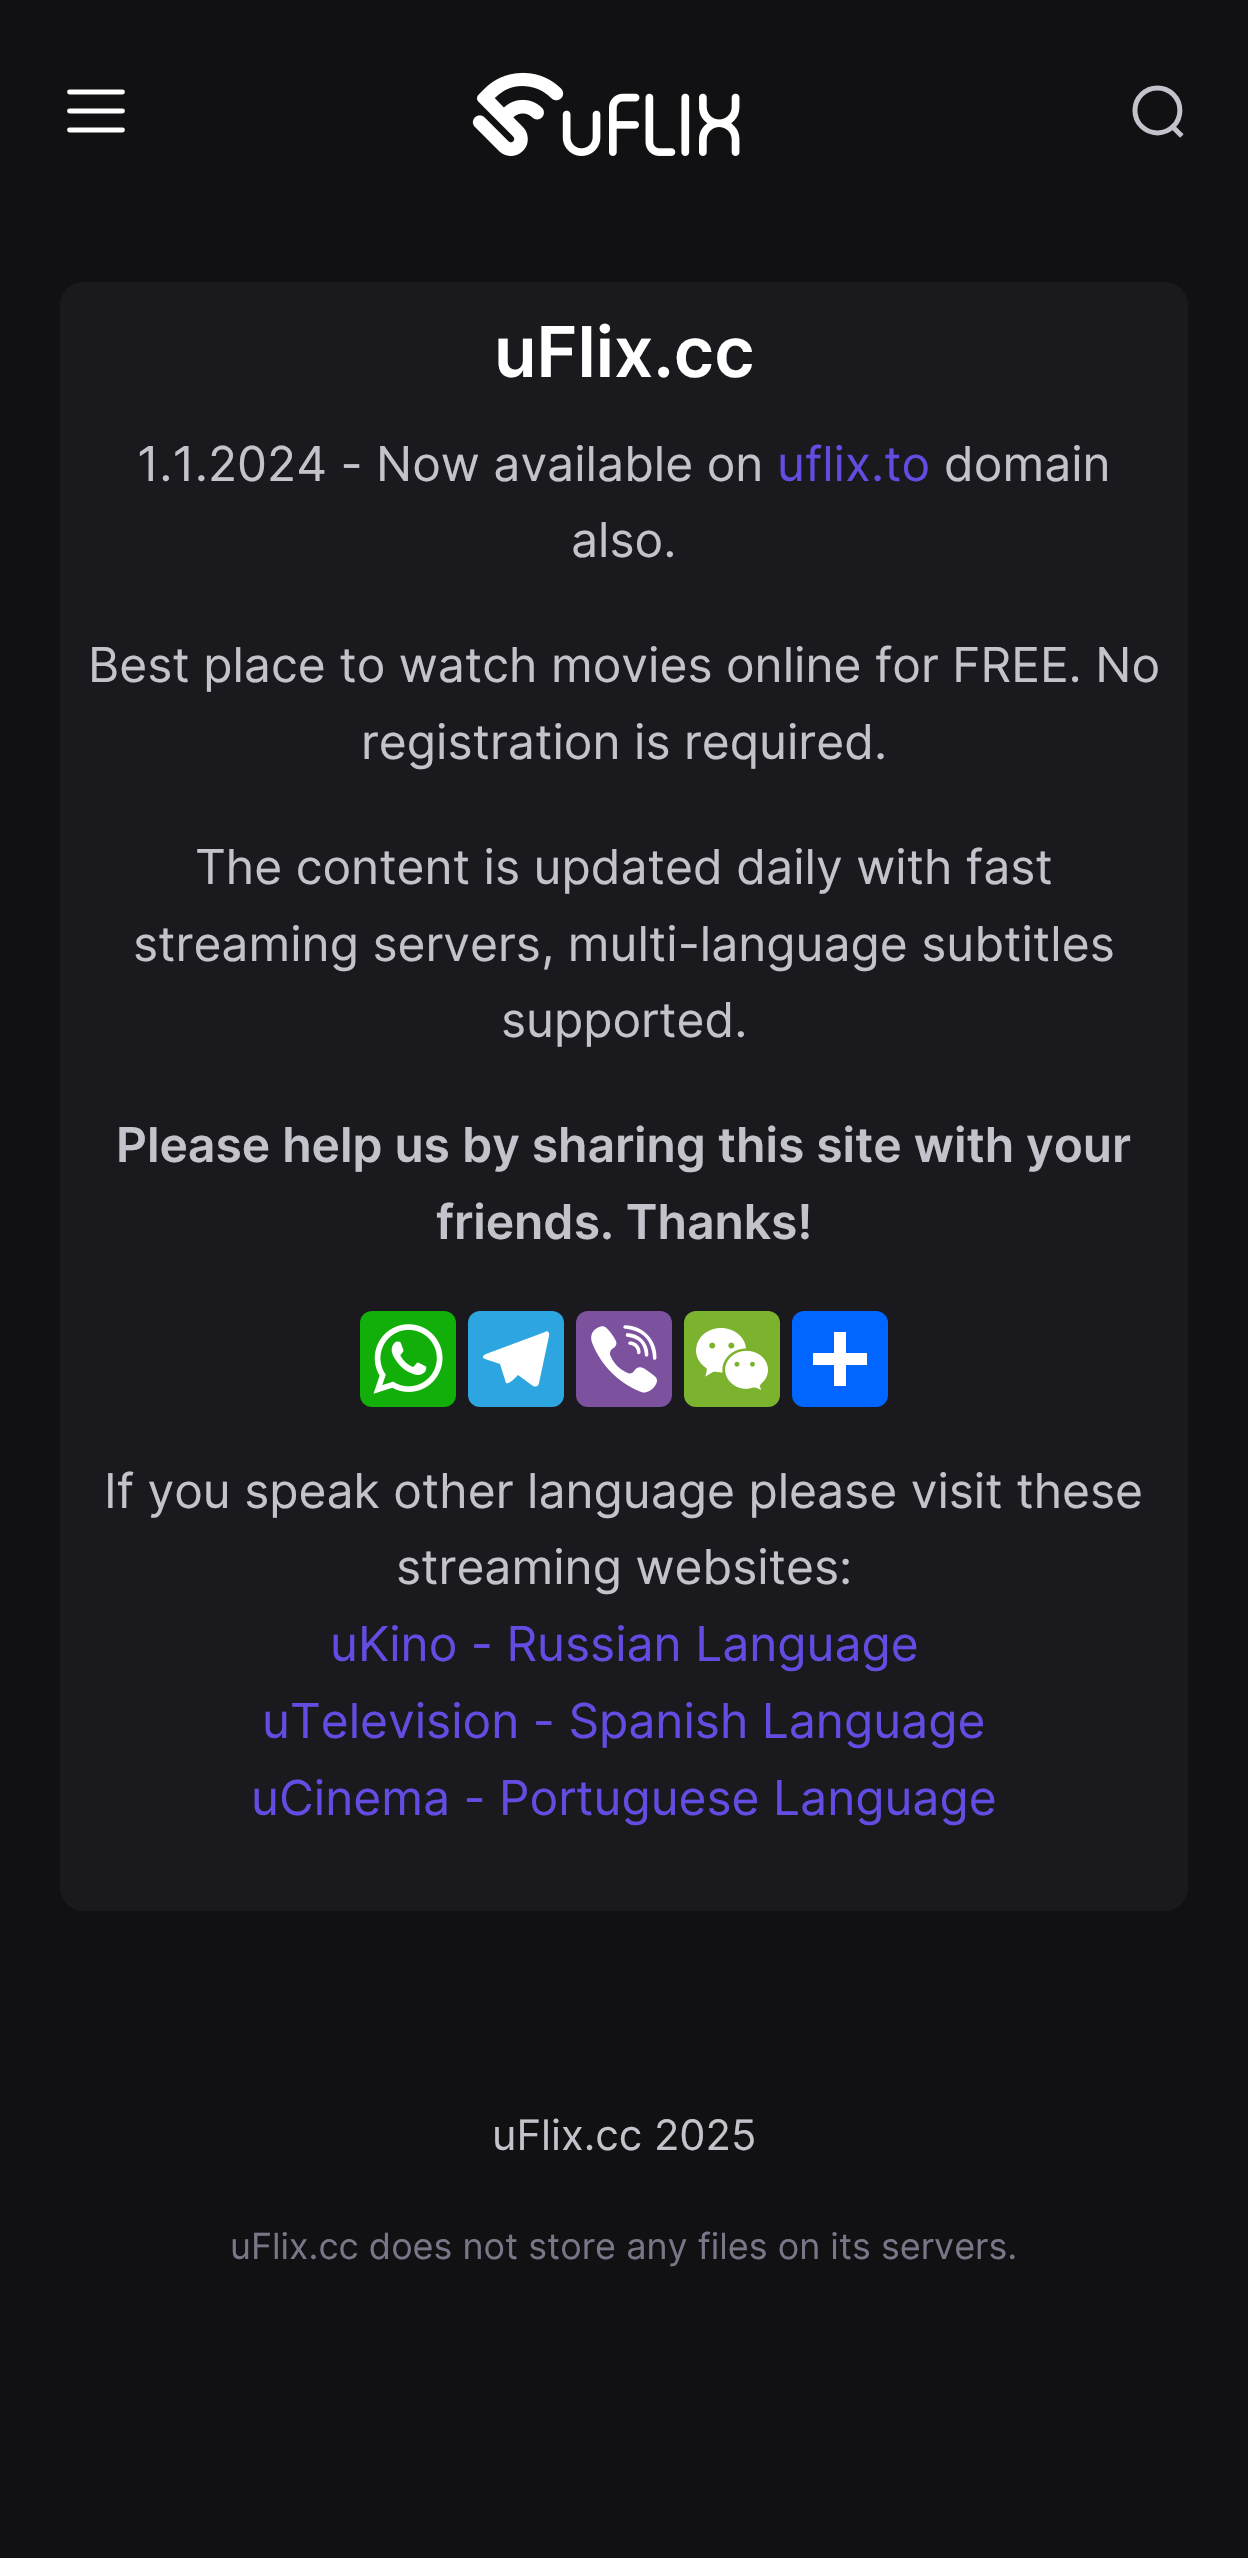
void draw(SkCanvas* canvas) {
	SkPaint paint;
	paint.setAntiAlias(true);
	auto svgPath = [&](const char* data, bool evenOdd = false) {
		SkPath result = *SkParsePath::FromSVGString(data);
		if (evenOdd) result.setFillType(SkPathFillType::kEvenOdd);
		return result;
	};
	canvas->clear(0xff111113);
	paint.setStroke(true);
	paint.setStrokeWidth(4.8);
	paint.setStrokeCap(SkPaint::kRound_Cap);
	paint.setColor(0xffffffff);
	canvas->drawPath(svgPath("M69.5 92H122.5M69.5 111H122.5M69.5 130H122.5"), paint);
	canvas->drawImageRect(SkImages::DeferredFromEncodedData(SkData::MakeFromFileName("img1.png")), SkRect::MakeXYWH(472, 72, 268, 84), SkSamplingOptions());
	canvas->drawImageRect(SkImages::DeferredFromEncodedData(SkData::MakeFromFileName("img2.png")), SkRect::MakeXYWH(1132, 85, 52, 53), SkSamplingOptions());
	paint.setStroke(false);
	paint.setColor(0xff1a1a1e);
	canvas->drawRoundRect(SkRect::MakeXYWH(60, 282, 1128, 1629), 24, 24, paint);
	SkFont f1(fontMgr->matchFamilyStyle("Inter", SkFontStyle(600, SkFontStyle::kNormal_Width, SkFontStyle::kUpright_Slant)), 70);
	f1.setSubpixel(true);
	paint.setColor(0xffffffff);
	canvas->drawString("uFlix.cc", 494, 377, f1, paint);
	SkFont f2(fontMgr->matchFamilyStyle("Inter", SkFontStyle::Normal()), 48);
	f2.setSubpixel(true);
	paint.setColor(0xffc3c3cb);
	canvas->drawString("1.1.2024 - Now available on", 137, 481, f2, paint);
	paint.setColor(0xff624de3);
	canvas->drawString("uflix.to", 777, 481, f2, paint);
	paint.setColor(0xffc3c3cb);
	canvas->drawString("domain", 944, 481, f2, paint);
	canvas->drawString("also.", 571, 557, f2, paint);
	canvas->drawString("Best place to watch movies online for FREE. No", 88, 682, f2, paint);
	canvas->drawString("registration is required.", 361, 759, f2, paint);
	canvas->drawString("The content is updated daily with fast", 195, 884, f2, paint);
	canvas->drawString("streaming servers, multi-language subtitles", 133, 961, f2, paint);
	canvas->drawString("supported.", 501, 1037, f2, paint);
	SkFont f3(fontMgr->matchFamilyStyle("Inter", SkFontStyle(600, SkFontStyle::kNormal_Width, SkFontStyle::kUpright_Slant)), 48);
	f3.setSubpixel(true);
	canvas->drawString("Please help us by sharing this site with your", 116, 1162, f3, paint);
	canvas->drawString("friends. Thanks!", 436, 1239, f3, paint);
	paint.setColor(0xff12af0a);
	canvas->drawRoundRect(SkRect::MakeXYWH(360, 1311, 96, 96), 12, 12, paint);
	canvas->drawImageRect(SkImages::DeferredFromEncodedData(SkData::MakeFromFileName("img3.png")), SkRect::MakeXYWH(373, 1324, 70, 70), SkSamplingOptions());
	paint.setColor(0xff2ca5e0);
	canvas->drawRoundRect(SkRect::MakeXYWH(468, 1311, 96, 96), 12, 12, paint);
	paint.setColor(0xffffffff);
	canvas->drawPath(svgPath("M545 1332L486 1354C482 1356 482 1358 485 1359L500 1364L506 1383C509 1385 517 1376 518 1375L533 1386C536 1387 538 1387 539 1383L549 1336C550 1332 547 1330 545 1332Z"), paint);
	paint.setColor(0xff7c529e);
	canvas->drawRoundRect(SkRect::MakeXYWH(576, 1311, 96, 96), 12, 12, paint);
	canvas->drawImageRect(SkImages::DeferredFromEncodedData(SkData::MakeFromFileName("img4.png")), SkRect::MakeXYWH(591, 1325, 66, 68), SkSamplingOptions());
	paint.setColor(0xff7bb32e);
	canvas->drawRoundRect(SkRect::MakeXYWH(684, 1311, 96, 96), 12, 12, paint);
	canvas->drawImageRect(SkImages::DeferredFromEncodedData(SkData::MakeFromFileName("img5.png")), SkRect::MakeXYWH(696, 1328, 72, 62), SkSamplingOptions());
	paint.setColor(0xff0166ff);
	canvas->drawRoundRect(SkRect::MakeXYWH(792, 1311, 96, 96), 12, 12, paint);
	paint.setColor(0xffffffff);
	canvas->drawRect(SkRect::MakeXYWH(834, 1332, 12, 54), paint);
	canvas->drawRect(SkRect::MakeXYWH(813, 1353, 54, 12), paint);
	paint.setColor(0xffc3c3cb);
	canvas->drawString("If you speak other language please visit these", 104, 1508, f2, paint);
	canvas->drawString("streaming websites:", 396, 1584, f2, paint);
	paint.setColor(0xff624de3);
	canvas->drawString("uKino - Russian Language", 330, 1661, f2, paint);
	canvas->drawString("uTelevision - Spanish Language", 262, 1738, f2, paint);
	canvas->drawString("uCinema - Portuguese Language", 251, 1815, f2, paint);
	SkFont f4(fontMgr->matchFamilyStyle("Inter", SkFontStyle::Normal()), 42);
	f4.setSubpixel(true);
	paint.setColor(0xffc3c3cb);
	canvas->drawString("uFlix.cc 2025", 492, 2150, f4, paint);
	SkFont f5(fontMgr->matchFamilyStyle("Inter", SkFontStyle::Normal()), 36);
	f5.setSubpixel(true);
	paint.setColor(0xff777788);
	canvas->drawString("uFlix.cc does not store any files on its servers.", 230, 2259, f5, paint);
}
